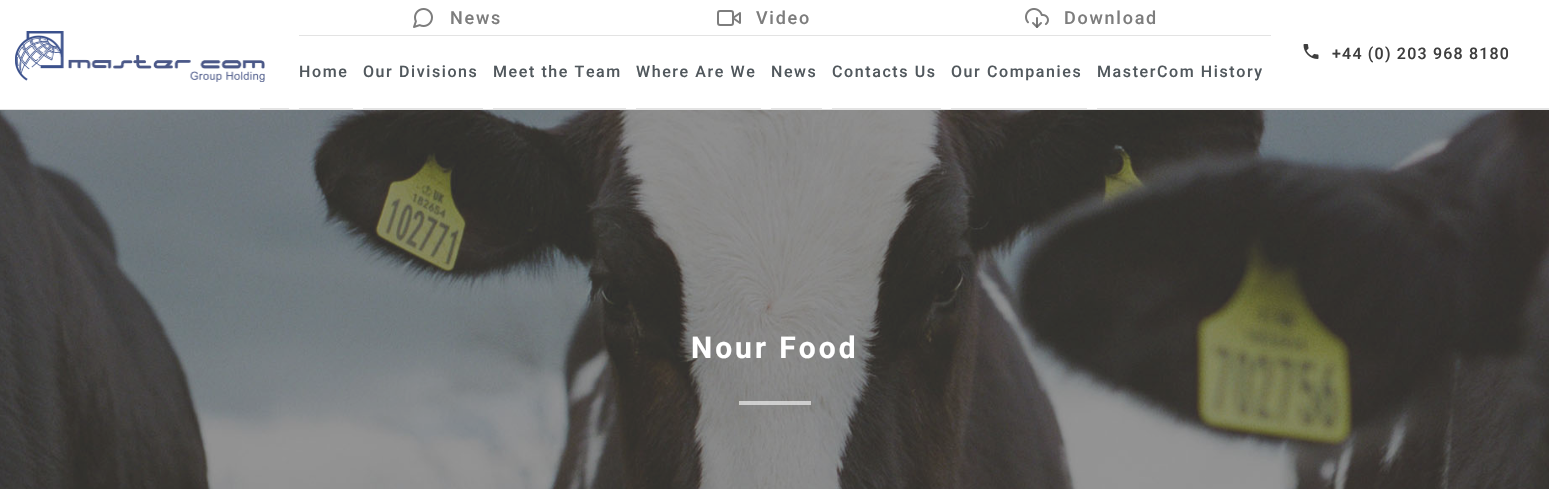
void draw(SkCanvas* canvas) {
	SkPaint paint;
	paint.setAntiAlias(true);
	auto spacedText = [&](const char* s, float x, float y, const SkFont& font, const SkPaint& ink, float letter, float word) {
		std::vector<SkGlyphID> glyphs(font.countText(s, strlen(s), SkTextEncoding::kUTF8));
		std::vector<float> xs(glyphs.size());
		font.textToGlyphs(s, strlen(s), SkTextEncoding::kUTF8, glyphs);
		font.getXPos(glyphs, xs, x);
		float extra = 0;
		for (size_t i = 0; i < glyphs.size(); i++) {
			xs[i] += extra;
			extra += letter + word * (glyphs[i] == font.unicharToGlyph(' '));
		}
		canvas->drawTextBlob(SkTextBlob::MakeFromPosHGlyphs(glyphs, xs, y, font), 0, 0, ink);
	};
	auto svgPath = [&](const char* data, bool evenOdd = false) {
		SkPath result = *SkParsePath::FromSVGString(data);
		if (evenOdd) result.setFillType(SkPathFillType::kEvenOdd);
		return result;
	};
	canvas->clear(0xffffffff);
	paint.setColor(0xffe3e3e3);
	canvas->drawRect(SkRect::MakeXYWH(0, 109, 1549, 1), paint);
	canvas->drawImageRect(SkImages::DeferredFromEncodedData(SkData::MakeFromFileName("img1.png")), SkRect::MakeXYWH(15, 31, 250, 51), SkSamplingOptions());
	canvas->drawRect(SkRect::MakeXYWH(260, 108, 1289, 1), paint);
	canvas->drawRect(SkRect::MakeXYWH(299, 35, 972, 1), paint);
	canvas->drawImageRect(SkImages::DeferredFromEncodedData(SkData::MakeFromFileName("img2.png")), SkRect::MakeXYWH(413, 8, 20, 20), SkSamplingOptions());
	SkFont f1(fontMgr->matchFamilyStyle("Roboto", SkFontStyle(500, SkFontStyle::kNormal_Width, SkFontStyle::kUpright_Slant)), 18);
	f1.setSubpixel(true);
	paint.setColor(0xff7d7d7d);
	spacedText("News", 450, 24, f1, paint, 1.75, 0);
	paint.setStroke(true);
	paint.setStrokeWidth(2);
	paint.setStrokeCap(SkPaint::kRound_Cap);
	paint.setStrokeJoin(SkPaint::kRound_Join);
	canvas->drawPath(svgPath("M740 13L733 18L740 23Z"), paint);
	paint.setStrokeCap(SkPaint::kButt_Cap);
	paint.setStrokeJoin(SkPaint::kMiter_Join);
	canvas->drawRoundRect(SkRect::MakeXYWH(718, 11, 15, 14), 2, 2, paint);
	paint.setStroke(false);
	spacedText("Video", 756, 24, f1, paint, 1.75, 0);
	canvas->drawImageRect(SkImages::DeferredFromEncodedData(SkData::MakeFromFileName("img3.png")), SkRect::MakeXYWH(1025, 8, 24, 20), SkSamplingOptions());
	spacedText("Download", 1064, 24, f1, paint, 1.75, 0);
	SkFont f2(fontMgr->matchFamilyStyle("Roboto", SkFontStyle(500, SkFontStyle::kNormal_Width, SkFontStyle::kUpright_Slant)), 16);
	f2.setSubpixel(true);
	paint.setColor(0xff51585d);
	spacedText("Home", 299, 77, f2, paint, 1.6, 0);
	paint.setColor(0xffffffff);
	canvas->drawRect(SkRect::MakeXYWH(289, 108, 10, 1), paint);
	paint.setColor(0xff51585d);
	spacedText("Our Divisions", 363, 77, f2, paint, 1.6, 0);
	paint.setColor(0xffffffff);
	canvas->drawRect(SkRect::MakeXYWH(353, 108, 10, 1), paint);
	paint.setColor(0xff51585d);
	spacedText("Meet the Team", 493, 77, f2, paint, 1.6, 0);
	paint.setColor(0xffffffff);
	canvas->drawRect(SkRect::MakeXYWH(483, 108, 10, 1), paint);
	paint.setColor(0xff51585d);
	spacedText("Where Are We", 636, 77, f2, paint, 1.6, 0);
	paint.setColor(0xffffffff);
	canvas->drawRect(SkRect::MakeXYWH(626, 108, 10, 1), paint);
	paint.setColor(0xff51585d);
	spacedText("News", 771, 77, f2, paint, 1.6, 0);
	paint.setColor(0xffffffff);
	canvas->drawRect(SkRect::MakeXYWH(761, 108, 10, 1), paint);
	paint.setColor(0xff51585d);
	spacedText("Contacts Us", 832, 77, f2, paint, 1.6, 0);
	paint.setColor(0xffffffff);
	canvas->drawRect(SkRect::MakeXYWH(822, 108, 10, 1), paint);
	paint.setColor(0xff51585d);
	spacedText("Our Companies", 951, 77, f2, paint, 1.6, 0);
	paint.setColor(0xffffffff);
	canvas->drawRect(SkRect::MakeXYWH(941, 108, 10, 1), paint);
	paint.setColor(0xff51585d);
	spacedText("MasterCom History", 1097, 77, f2, paint, 1.6, 0);
	paint.setColor(0xffffffff);
	canvas->drawRect(SkRect::MakeXYWH(1087, 108, 10, 1), paint);
	canvas->drawImageRect(SkImages::DeferredFromEncodedData(SkData::MakeFromFileName("img4.png")), SkRect::MakeXYWH(1303, 44, 16, 15), SkSamplingOptions());
	paint.setColor(0xff3e3e3e);
	spacedText("+44 (0) 203 968 8180", 1332, 59, f2, paint, 1.2, 0);
	canvas->drawImageRect(SkImages::DeferredFromEncodedData(SkData::MakeFromFileName("img5.png")), SkRect::MakeXYWH(0, 110, 1549, 379), SkSamplingOptions());
	SkFont f3(fontMgr->matchFamilyStyle("Roboto", SkFontStyle::Bold()), 30);
	f3.setSubpixel(true);
	paint.setColor(0xffffffff);
	spacedText("Nour Food", 691, 358, f3, paint, 3, 0);
	paint.setColor(0x99ffffff);
	canvas->drawRect(SkRect::MakeXYWH(739, 401, 72, 4), paint);
}
